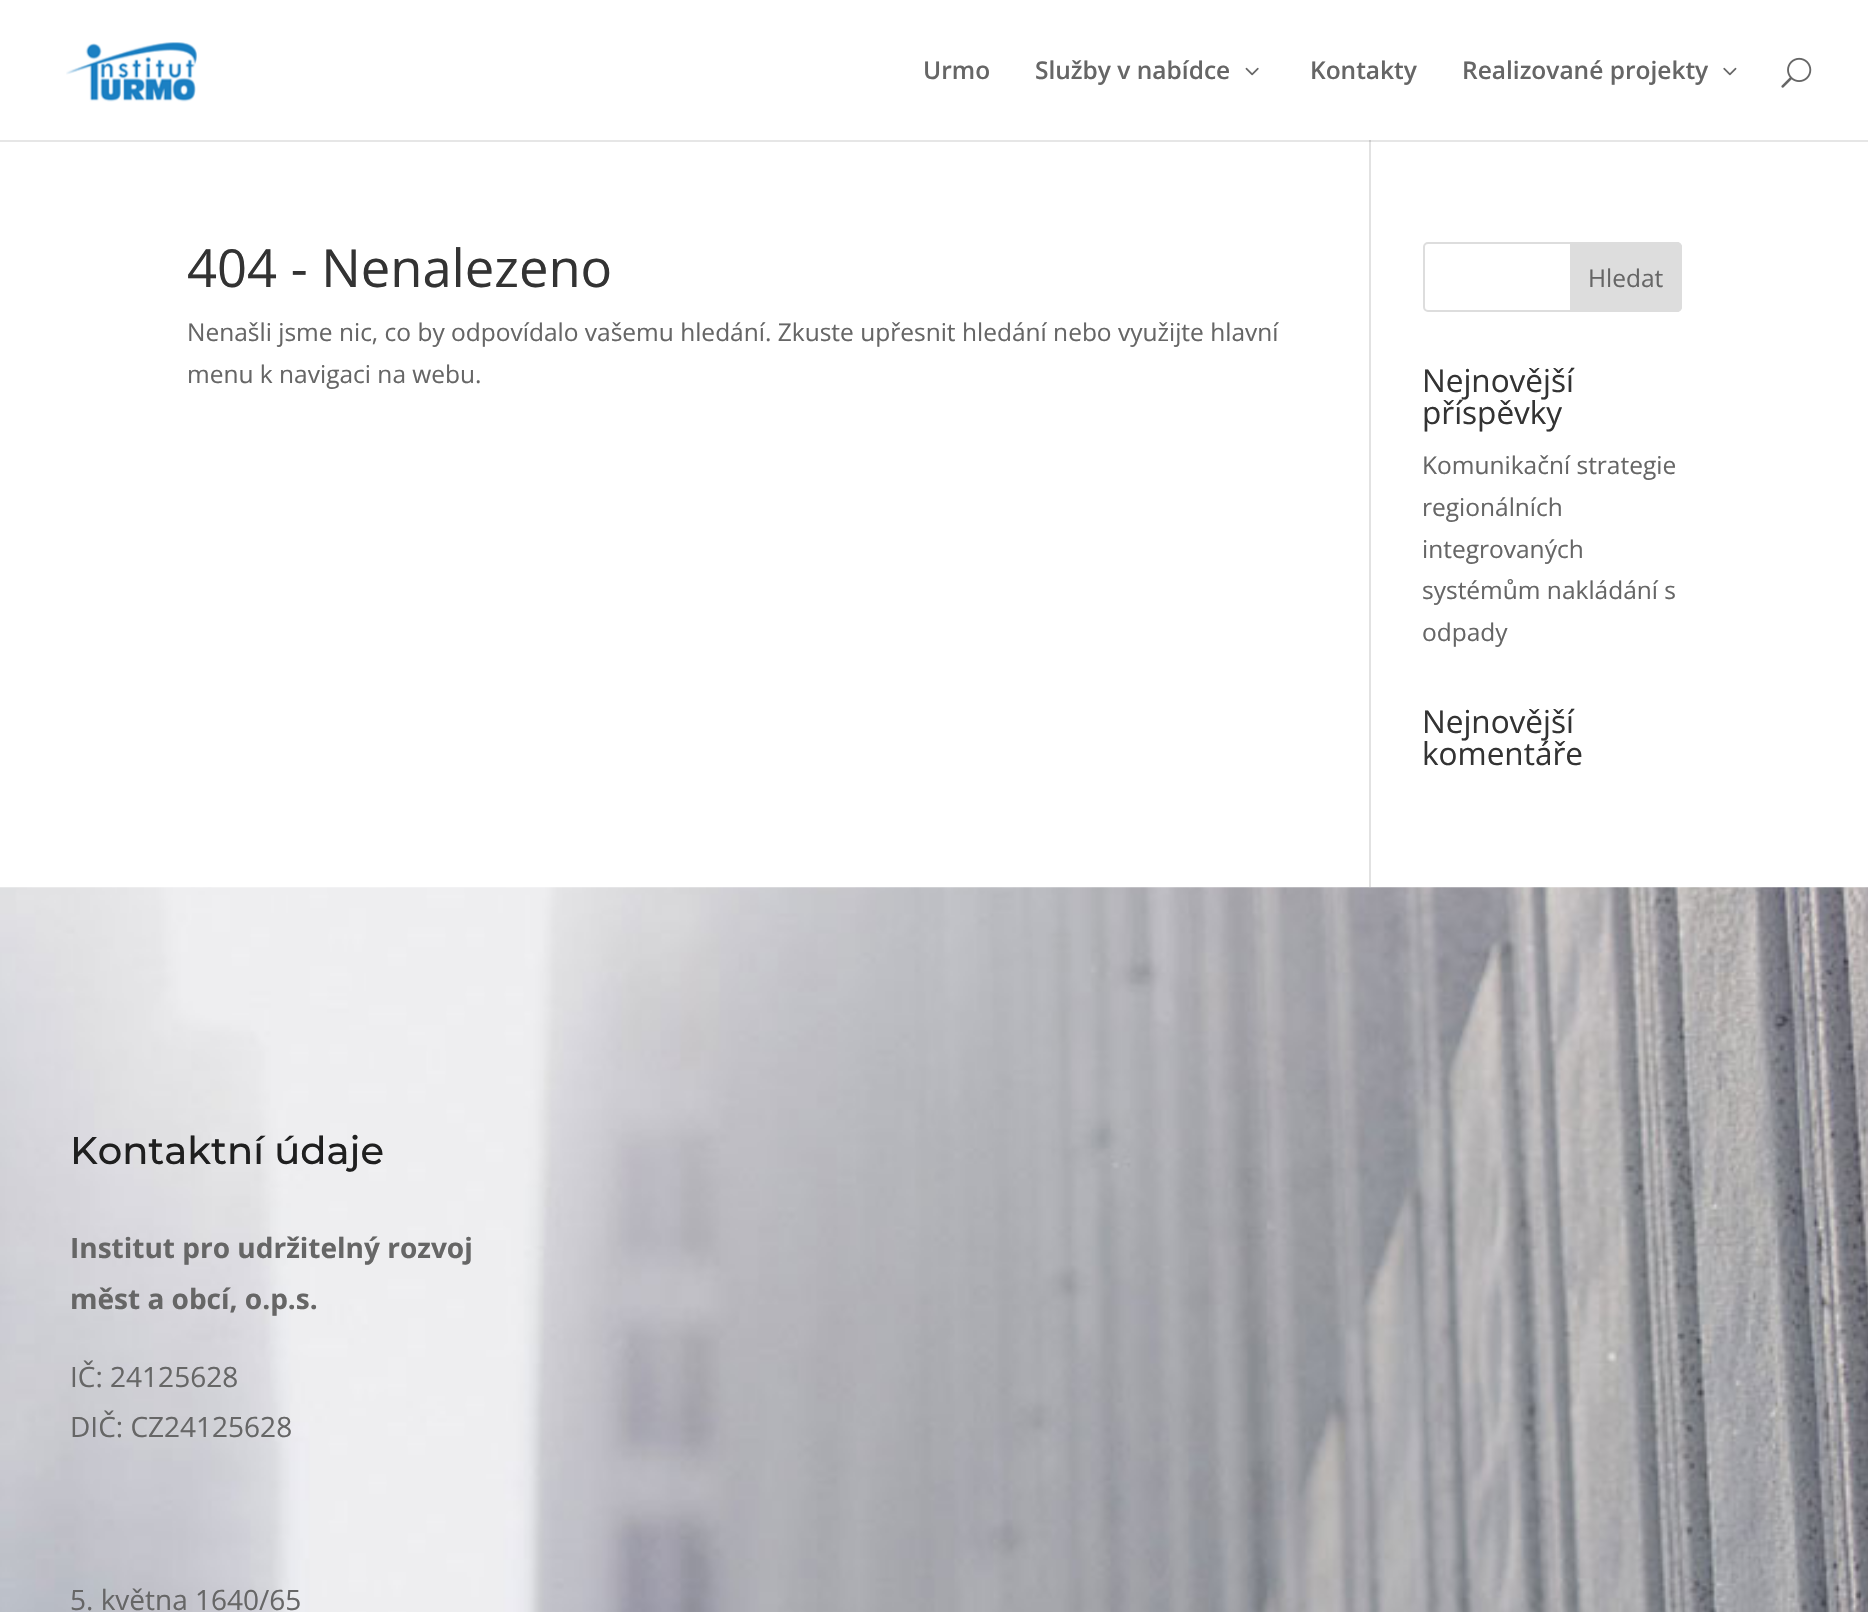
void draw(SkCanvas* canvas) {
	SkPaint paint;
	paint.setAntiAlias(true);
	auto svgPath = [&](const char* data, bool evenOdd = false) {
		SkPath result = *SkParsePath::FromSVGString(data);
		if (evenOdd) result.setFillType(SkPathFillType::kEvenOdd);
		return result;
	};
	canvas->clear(0xffffffff);
	paint.setColor(0xffe6e6e6);
	canvas->drawRect(SkRect::MakeXYWH(0, 140, 1868, 2), paint);
	canvas->drawImageRect(SkImages::DeferredFromEncodedData(SkData::MakeFromFileName("img1.png")), SkRect::MakeXYWH(66, 42, 131, 60), SkSamplingOptions());
	SkFont f1(fontMgr->matchFamilyStyle("Open Sans", SkFontStyle(600, SkFontStyle::kNormal_Width, SkFontStyle::kUpright_Slant)), 24.5);
	f1.setSubpixel(true);
	paint.setColor(0xff666666);
	canvas->drawString("Urmo", 923, 79, f1, paint);
	canvas->drawString("Služby v nabídce", 1035, 79, f1, paint);
	canvas->drawImageRect(SkImages::DeferredFromEncodedData(SkData::MakeFromFileName("img2.png")), SkRect::MakeXYWH(1245, 67, 14, 9), SkSamplingOptions());
	canvas->drawString("Kontakty", 1310, 79, f1, paint);
	canvas->drawString("Realizované projekty", 1462, 79, f1, paint);
	canvas->drawImageRect(SkImages::DeferredFromEncodedData(SkData::MakeFromFileName("img3.png")), SkRect::MakeXYWH(1723, 67, 14, 9), SkSamplingOptions());
	canvas->drawImageRect(SkImages::DeferredFromEncodedData(SkData::MakeFromFileName("img4.png")), SkRect::MakeXYWH(1781, 57, 31, 31), SkSamplingOptions());
	paint.setColor(0xffe2e2e2);
	canvas->drawRect(SkRect::MakeXYWH(1369, 140, 2, 747), paint);
	paint.setColor(0xffcbcbcb);
	canvas->drawRect(SkRect::MakeXYWH(1369, 140, 2, 2), paint);
	SkFont f2(fontMgr->matchFamilyStyle("Open Sans", SkFontStyle::Normal()), 52.5);
	f2.setSubpixel(true);
	paint.setColor(0xff333333);
	canvas->drawString("404 - Nenalezeno", 187, 287, f2, paint);
	SkFont f3(fontMgr->matchFamilyStyle("Open Sans", SkFontStyle::Normal()), 24.5);
	f3.setSubpixel(true);
	paint.setColor(0xff666666);
	canvas->drawString("Nenašli jsme nic, co by odpovídalo vašemu hledání. Zkuste upřesnit hledání nebo využijte hlavní", 187, 341, f3, paint);
	canvas->drawString("menu k navigaci na webu.", 187, 383, f3, paint);
	paint.setStroke(true);
	paint.setStrokeWidth(2);
	paint.setColor(0xffdddddd);
	canvas->drawRoundRect(SkRect::MakeXYWH(1424, 243, 257, 68), 4, 4, paint);
	paint.setStroke(false);
	canvas->drawPath(svgPath("M1571 243H1677C1679 243 1681 245 1681 247V307C1681 309 1679 311 1677 311H1571Z"), paint);
	paint.setStroke(true);
	canvas->drawPath(svgPath("M1571 243H1677C1679 243 1681 245 1681 247V307C1681 309 1679 311 1677 311H1571Z"), paint);
	paint.setStroke(false);
	paint.setColor(0xff666666);
	canvas->drawString("Hledat", 1588, 287, f3, paint);
	SkFont f4(fontMgr->matchFamilyStyle("Open Sans", SkFontStyle::Normal()), 31.5);
	f4.setSubpixel(true);
	paint.setColor(0xff333333);
	canvas->drawString("Nejnovější", 1422, 392, f4, paint);
	canvas->drawString("příspěvky", 1422, 424, f4, paint);
	paint.setColor(0xff666666);
	canvas->drawString("Komunikační strategie", 1422, 474, f3, paint);
	canvas->drawString("regionálních", 1422, 516, f3, paint);
	canvas->drawString("integrovaných", 1422, 558, f3, paint);
	canvas->drawString("systémům nakládání s", 1422, 599, f3, paint);
	canvas->drawString("odpady", 1422, 641, f3, paint);
	paint.setColor(0xff333333);
	canvas->drawString("Nejnovější", 1422, 733, f4, paint);
	canvas->drawString("komentáře", 1422, 765, f4, paint);
	canvas->drawImageRect(SkImages::DeferredFromEncodedData(SkData::MakeFromFileName("img5.png")), SkRect::MakeXYWH(0, 887, 1868, 725), SkSamplingOptions());
	SkFont f5(fontMgr->matchFamilyStyle("Montserrat", SkFontStyle(100, SkFontStyle::kNormal_Width, SkFontStyle::kUpright_Slant)), 38.5);
	f5.setSubpixel(true);
	paint.setColor(0xff1f1f1f);
	canvas->drawString("Kontaktní údaje", 70, 1164, f5, paint);
	SkFont f6(fontMgr->matchFamilyStyle("Open Sans", SkFontStyle::Bold()), 28);
	f6.setSubpixel(true);
	paint.setColor(0xff666666);
	canvas->drawString("Institut pro udržitelný rozvoj", 70, 1258, f6, paint);
	canvas->drawString("měst a obcí, o.p.s.", 70, 1309, f6, paint);
	SkFont f7(fontMgr->matchFamilyStyle("Open Sans", SkFontStyle::Normal()), 28);
	f7.setSubpixel(true);
	canvas->drawString("IČ: 24125628", 70, 1387, f7, paint);
	canvas->drawString("DIČ: CZ24125628", 70, 1437, f7, paint);
	canvas->drawString("5. května 1640/65", 70, 1610, f7, paint);
}
